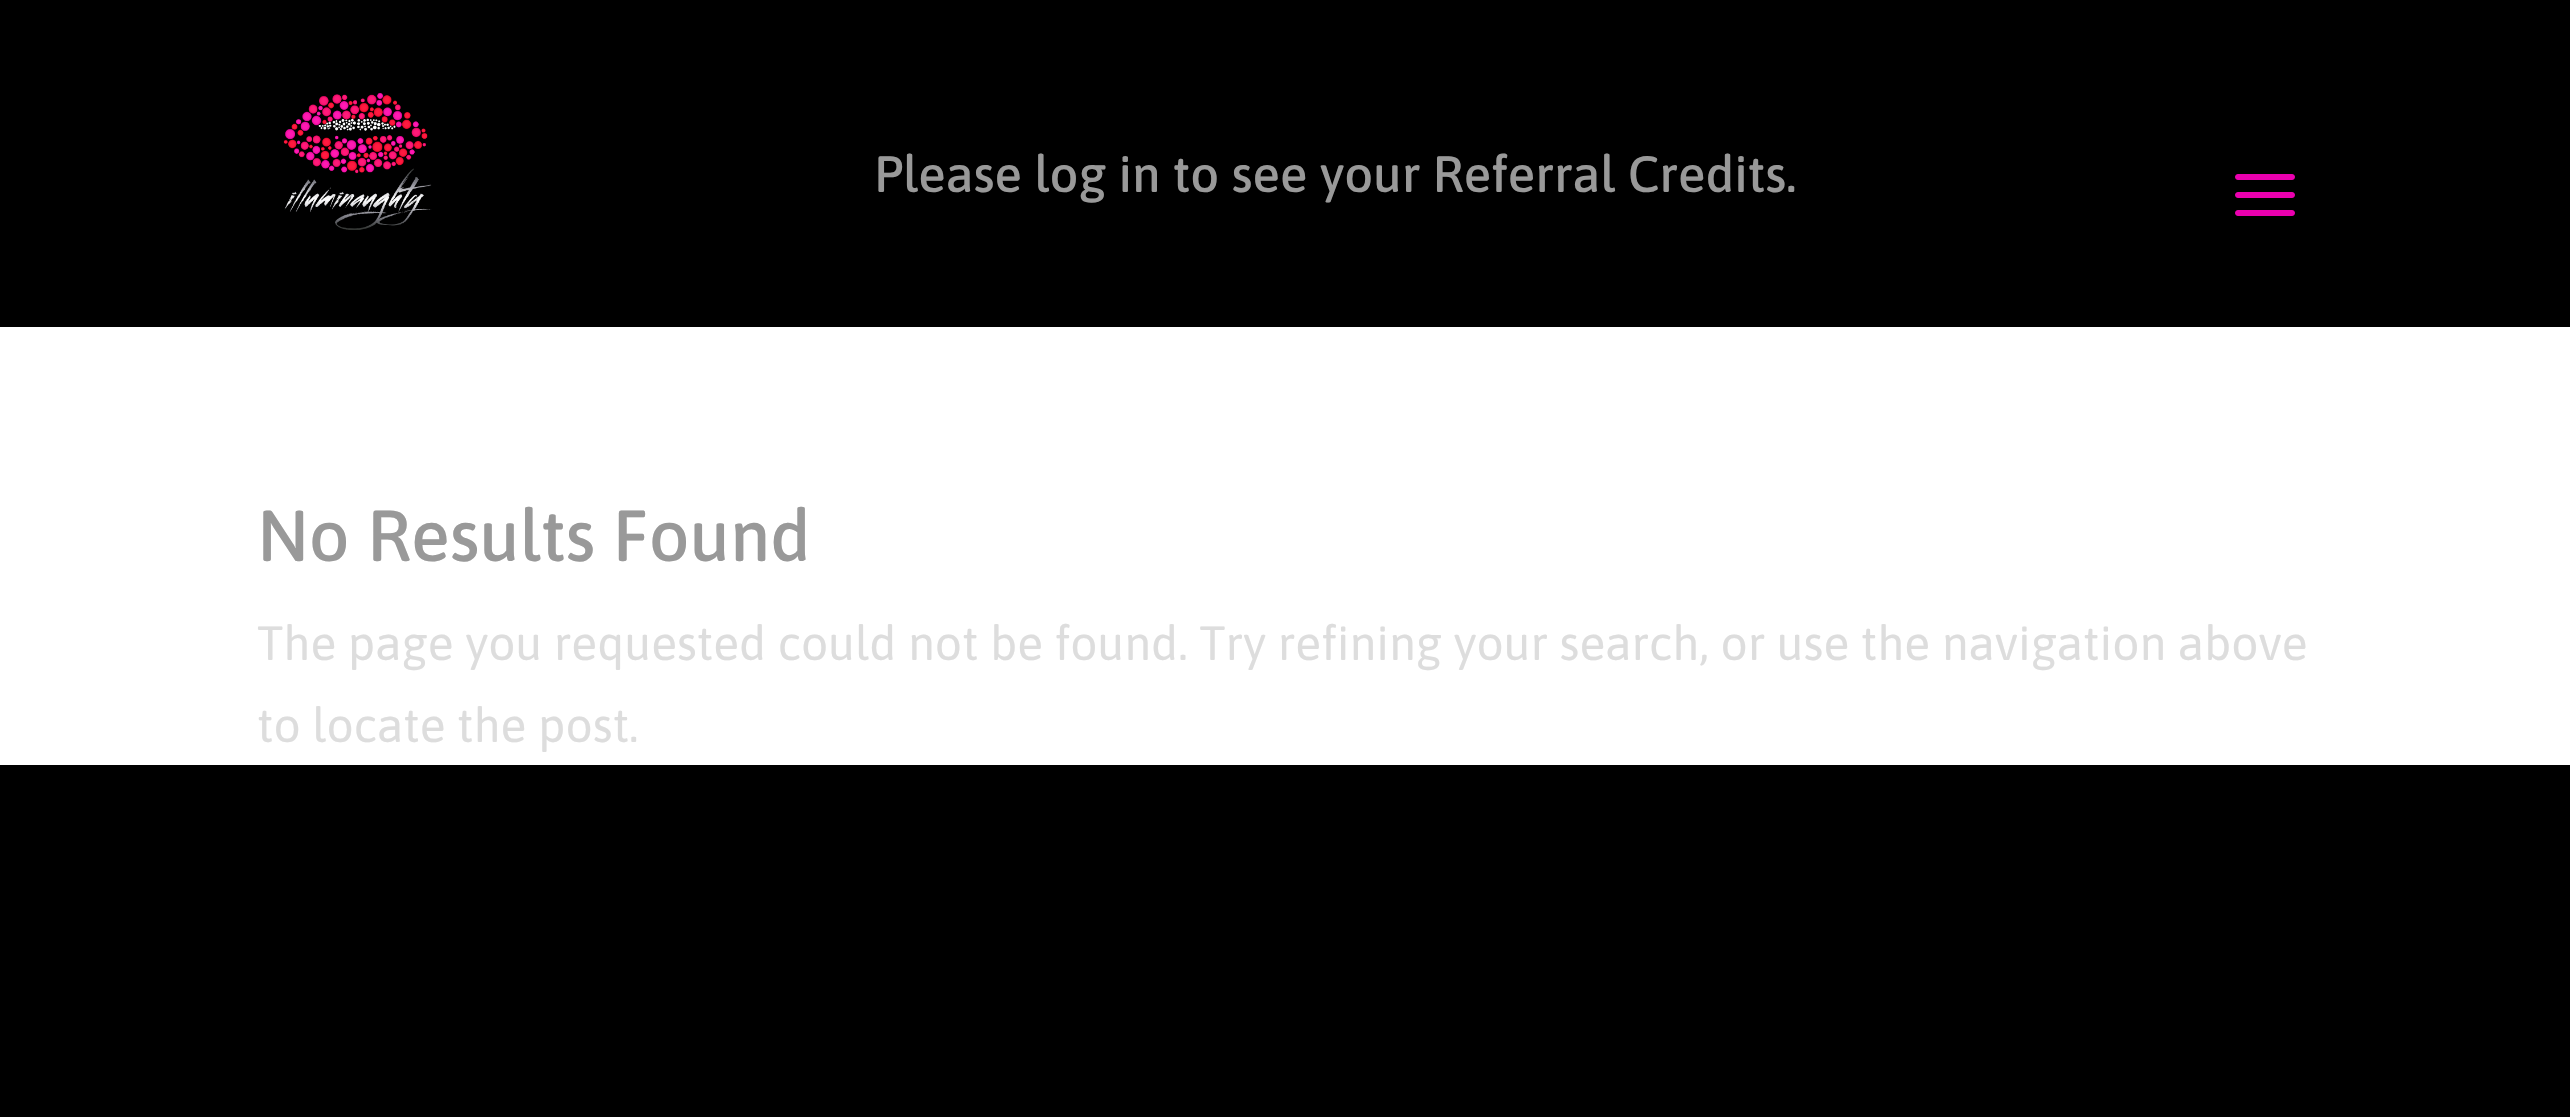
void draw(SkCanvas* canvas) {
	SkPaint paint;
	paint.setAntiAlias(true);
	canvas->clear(0xff000000);
	canvas->drawImageRect(SkImages::DeferredFromEncodedData(SkData::MakeFromFileName("img1.png")), SkRect::MakeXYWH(283, 93, 149, 137), SkSamplingOptions());
	SkFont f1(fontMgr->matchFamilyStyle("Asap", SkFontStyle(500, SkFontStyle::kNormal_Width, SkFontStyle::kUpright_Slant)), 51);
	f1.setSubpixel(true);
	paint.setColor(0xff999999);
	canvas->drawString("Please log in to see your Referral Credits.", 874, 192, f1, paint);
	canvas->drawImageRect(SkImages::DeferredFromEncodedData(SkData::MakeFromFileName("img2.png")), SkRect::MakeXYWH(2235, 174, 60, 42), SkSamplingOptions());
	paint.setColor(0xffffffff);
	canvas->drawRect(SkRect::MakeXYWH(0, 327, 2570, 438), paint);
	SkFont f2(fontMgr->matchFamilyStyle("Asap", SkFontStyle(500, SkFontStyle::kNormal_Width, SkFontStyle::kUpright_Slant)), 72);
	f2.setSubpixel(true);
	paint.setColor(0xff999999);
	canvas->drawString("No Results Found", 257, 561, f2, paint);
	SkFont f3(fontMgr->matchFamilyStyle("Asap", SkFontStyle::Normal()), 48);
	f3.setSubpixel(true);
	paint.setColor(0xffdddddd);
	canvas->drawString("The page you requested could not be found. Try refining your search, or use the navigation above", 257, 660, f3, paint);
	canvas->drawString("to locate the post.", 257, 742, f3, paint);
}
